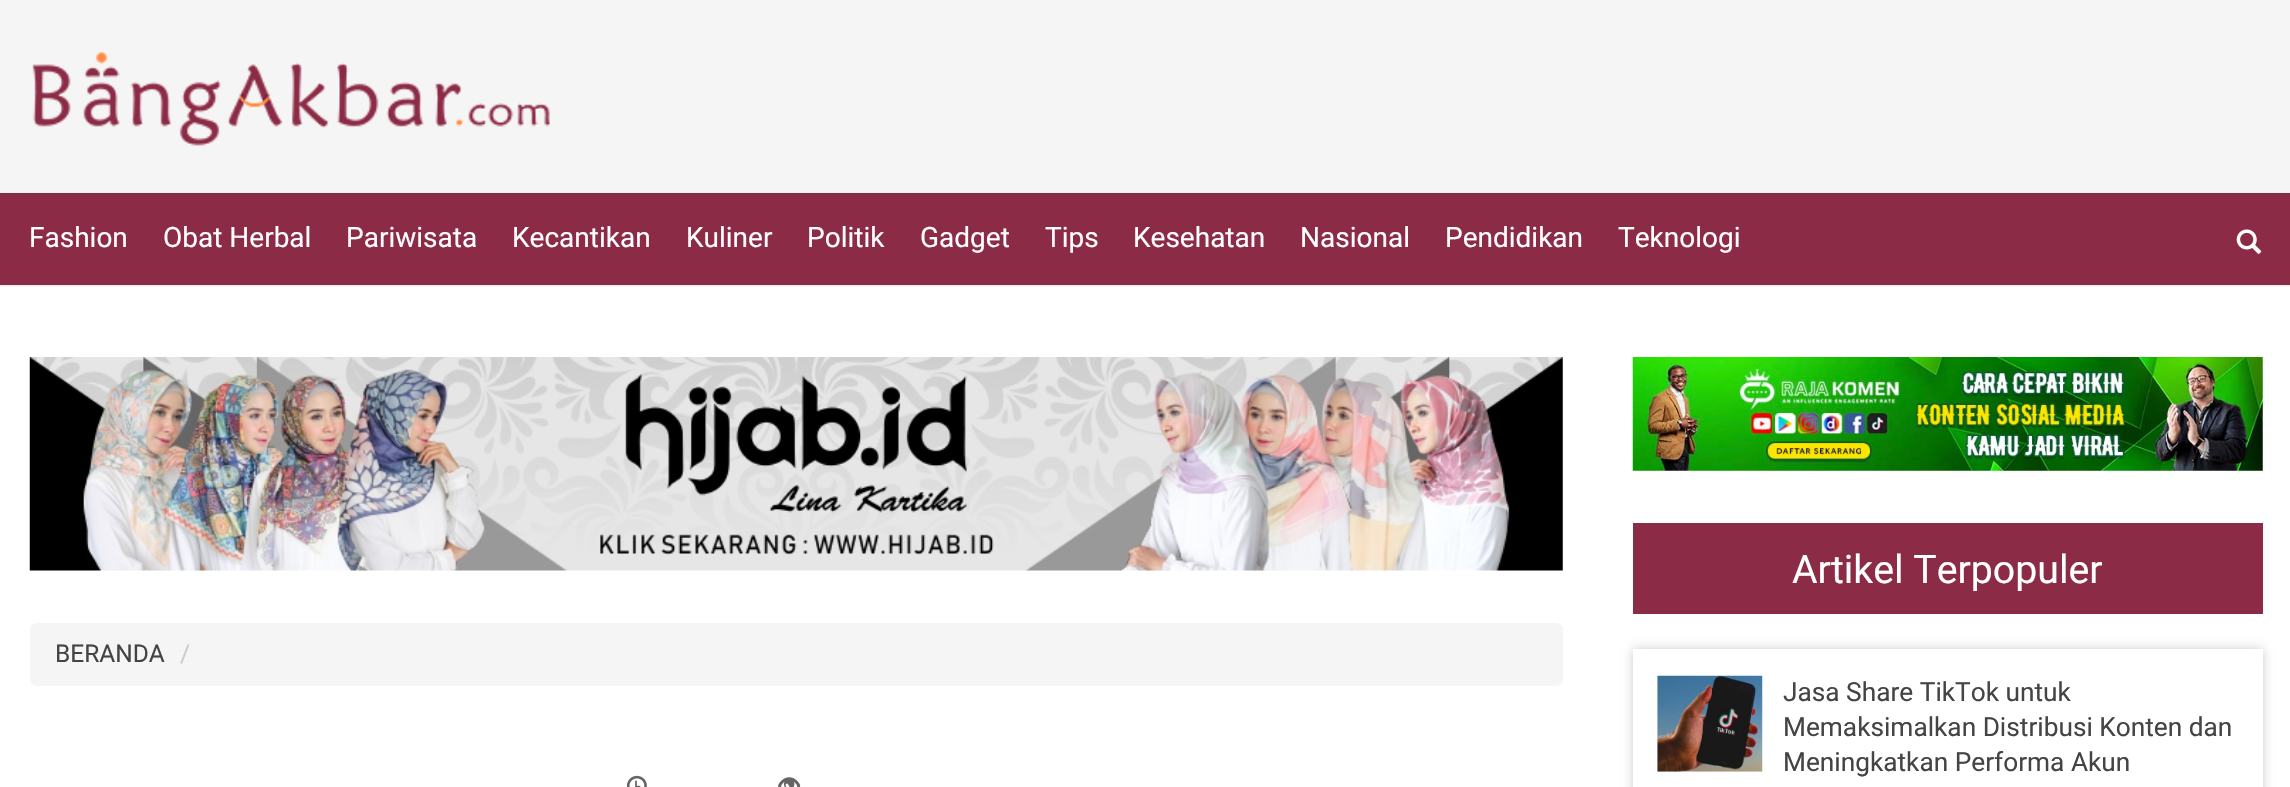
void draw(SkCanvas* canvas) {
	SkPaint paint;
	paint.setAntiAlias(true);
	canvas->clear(0xffffffff);
	paint.setColor(0xfff5f5f5);
	canvas->drawRect(SkRect::MakeXYWH(0, 0, 2290, 193), paint);
	canvas->drawImageRect(SkImages::DeferredFromEncodedData(SkData::MakeFromFileName("img1.png")), SkRect::MakeXYWH(31, 52, 519, 94), SkSamplingOptions());
	paint.setColor(0xff8b2b46);
	canvas->drawRect(SkRect::MakeXYWH(0, 193, 2290, 92), paint);
	paint.setColor(0xfff1f1f1);
	canvas->drawRect(SkRect::MakeXYWH(0, 285, 2290, 2), paint);
	SkFont f1(fontMgr->matchFamilyStyle("Roboto", SkFontStyle::Normal()), 28);
	f1.setSubpixel(true);
	paint.setColor(0xffffffff);
	canvas->drawString("Fashion", 29, 247, f1, paint);
	canvas->drawString("Obat Herbal", 163, 247, f1, paint);
	canvas->drawString("Pariwisata", 346, 247, f1, paint);
	canvas->drawString("Kecantikan", 512, 247, f1, paint);
	canvas->drawString("Kuliner", 686, 247, f1, paint);
	canvas->drawString("Politik", 807, 247, f1, paint);
	canvas->drawString("Gadget", 920, 247, f1, paint);
	canvas->drawString("Tips", 1045, 247, f1, paint);
	canvas->drawString("Kesehatan", 1133, 247, f1, paint);
	canvas->drawString("Nasional", 1300, 247, f1, paint);
	canvas->drawString("Pendidikan", 1445, 247, f1, paint);
	canvas->drawString("Teknologi", 1618, 247, f1, paint);
	canvas->drawImageRect(SkImages::DeferredFromEncodedData(SkData::MakeFromFileName("img2.png")), SkRect::MakeXYWH(2236, 229, 26, 25), SkSamplingOptions());
	canvas->drawImageRect(SkImages::DeferredFromEncodedData(SkData::MakeFromFileName("img3.png")), SkRect::MakeXYWH(29, 357, 1534, 214), SkSamplingOptions());
	paint.setColor(0xfff5f5f5);
	canvas->drawRoundRect(SkRect::MakeXYWH(30, 623, 1533, 63), 7, 7, paint);
	SkFont f2(fontMgr->matchFamilyStyle("Roboto", SkFontStyle::Normal()), 24.5);
	f2.setSubpixel(true);
	paint.setColor(0xff444444);
	canvas->drawString("BERANDA", 55, 662, f2, paint);
	paint.setColor(0xffcccccc);
	canvas->drawString("/", 180, 662, f2, paint);
	canvas->drawImageRect(SkImages::DeferredFromEncodedData(SkData::MakeFromFileName("img4.png")), SkRect::MakeXYWH(626, 775, 21, 12), SkSamplingOptions());
	canvas->drawImageRect(SkImages::DeferredFromEncodedData(SkData::MakeFromFileName("img5.png")), SkRect::MakeXYWH(778, 777, 23, 10), SkSamplingOptions());
	canvas->drawImageRect(SkImages::DeferredFromEncodedData(SkData::MakeFromFileName("img6.png")), SkRect::MakeXYWH(1632, 357, 631, 114), SkSamplingOptions());
	paint.setColor(0xff8b2b46);
	canvas->drawRect(SkRect::MakeXYWH(1633, 523, 630, 91), paint);
	SkFont f3(fontMgr->matchFamilyStyle("Roboto", SkFontStyle::Normal()), 39.25);
	f3.setSubpixel(true);
	paint.setColor(0xffffffff);
	canvas->drawString("Artikel Terpopuler", 1792, 583, f3, paint);
	paint.setColor(0xffcccccc);
	paint.setMaskFilter(SkMaskFilter::MakeBlur(kNormal_SkBlurStyle, 5));
	canvas->drawRect(SkRect::MakeXYWH(1633, 649, 630, 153), paint);
	paint.setMaskFilter(nullptr);
	paint.setColor(0xffffffff);
	canvas->drawRect(SkRect::MakeXYWH(1633, 649, 630, 138), paint);
	canvas->drawImageRect(SkImages::DeferredFromEncodedData(SkData::MakeFromFileName("img7.png")), SkRect::MakeXYWH(1657, 675, 106, 97), SkSamplingOptions());
	SkFont f4(fontMgr->matchFamilyStyle("Roboto", SkFontStyle::Normal()), 26.25);
	f4.setSubpixel(true);
	paint.setColor(0xff444444);
	canvas->drawString("Jasa Share TikTok untuk", 1783, 701, f4, paint);
	canvas->drawString("Memaksimalkan Distribusi Konten dan", 1783, 736, f4, paint);
	canvas->drawString("Meningkatkan Performa Akun", 1783, 771, f4, paint);
}
